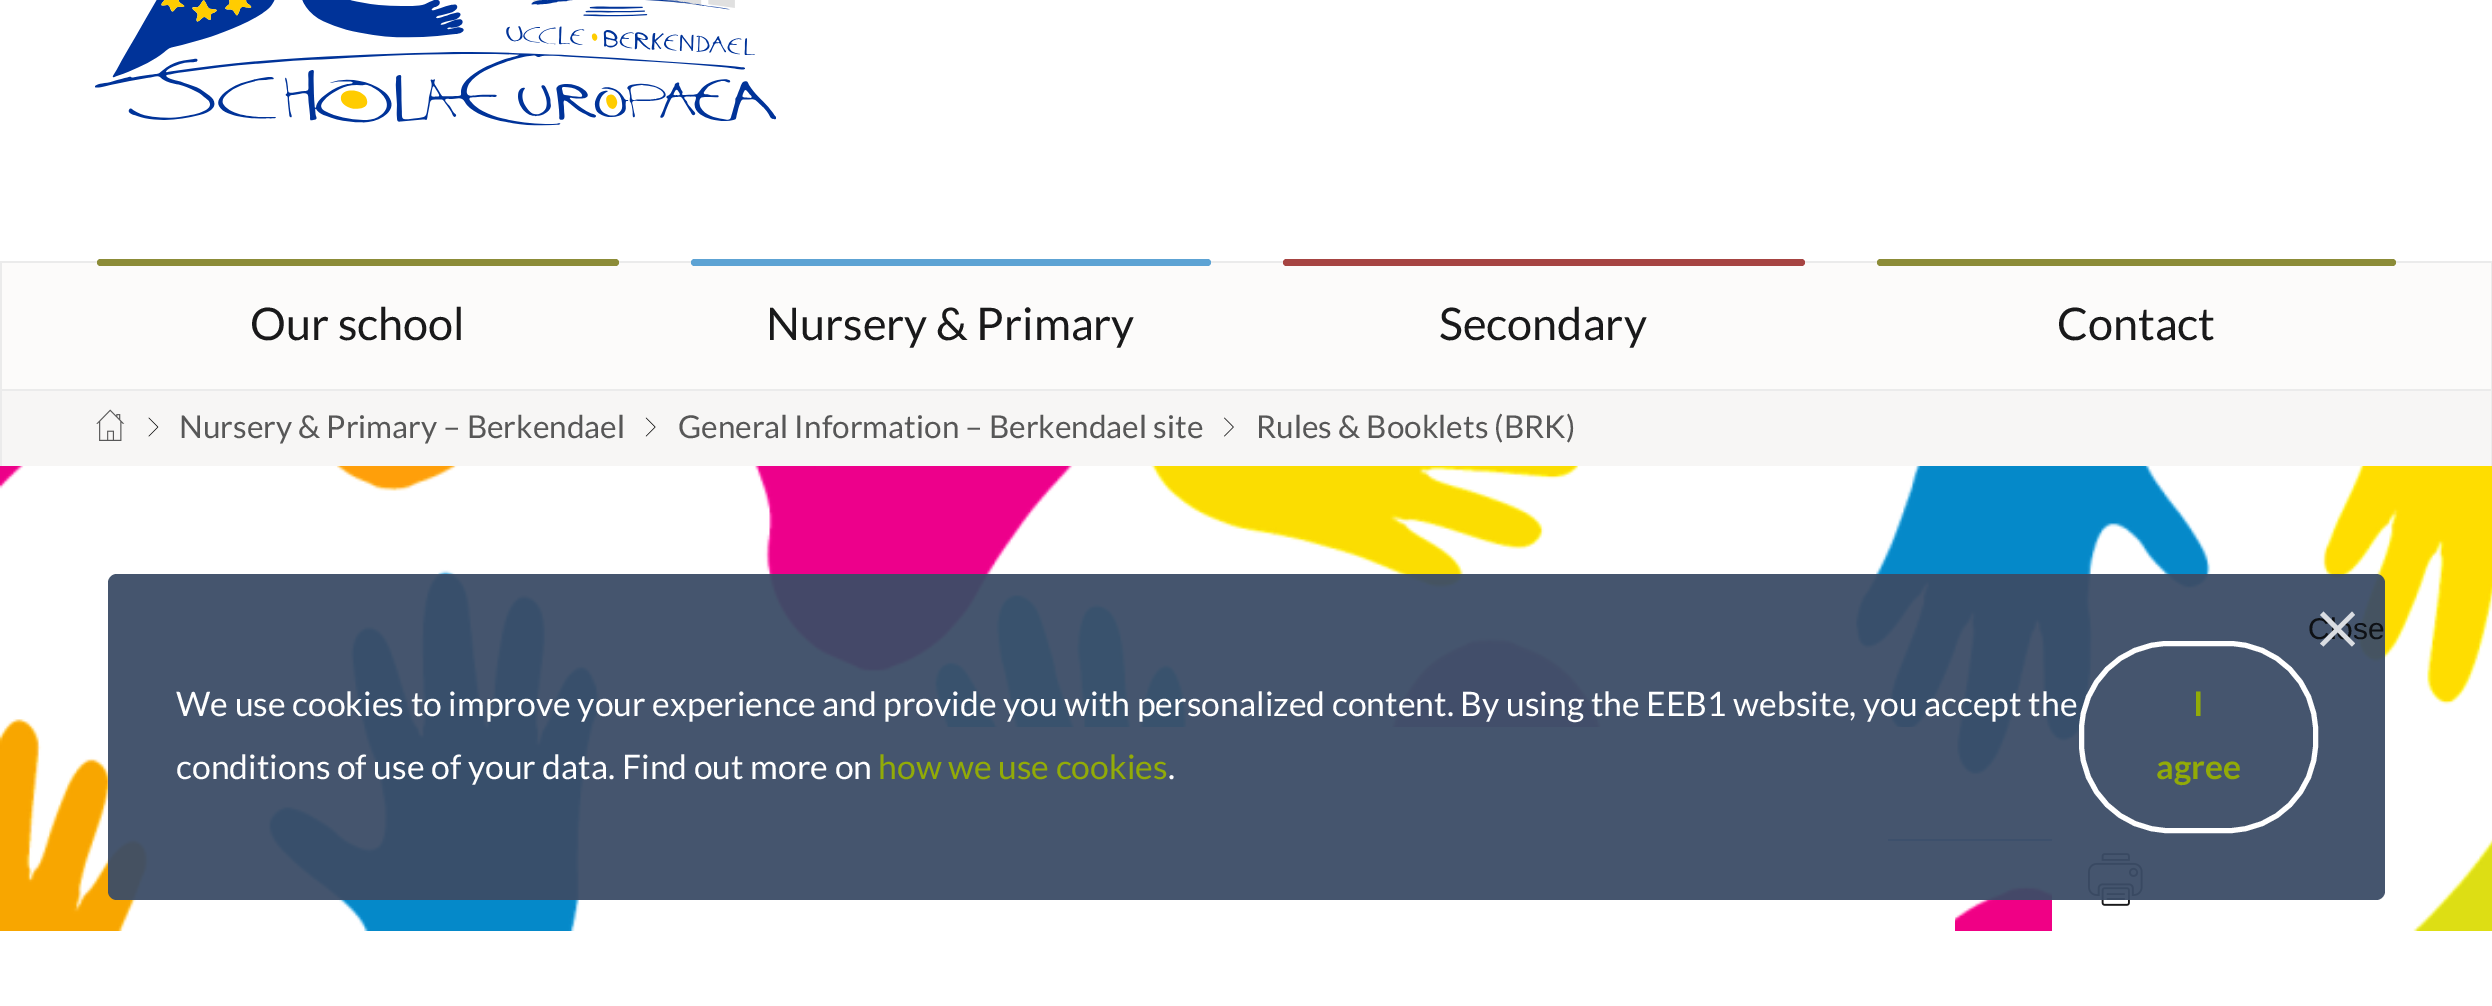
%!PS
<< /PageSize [2492 1006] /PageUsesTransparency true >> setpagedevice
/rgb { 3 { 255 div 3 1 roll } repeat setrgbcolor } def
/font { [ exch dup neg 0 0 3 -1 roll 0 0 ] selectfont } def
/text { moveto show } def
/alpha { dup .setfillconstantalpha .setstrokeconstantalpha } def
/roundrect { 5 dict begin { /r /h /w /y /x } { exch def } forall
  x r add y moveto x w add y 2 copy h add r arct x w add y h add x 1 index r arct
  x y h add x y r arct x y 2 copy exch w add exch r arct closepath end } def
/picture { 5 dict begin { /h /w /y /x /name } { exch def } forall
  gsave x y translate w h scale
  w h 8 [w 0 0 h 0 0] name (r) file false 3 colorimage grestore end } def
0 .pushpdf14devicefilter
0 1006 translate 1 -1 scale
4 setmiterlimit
255 255 255 rgb
0 0 2492 1006 rectfill
(img_01.rgb) 95 0 681 126 picture
252 251 250 rgb
2 263 2489 126 rectfill
235 235 235 rgb
0 261 2492 2 rectfill
2491 261 1 128 rectfill
0 261 2 128 rectfill
140 140 56 rgb
97 259 522 7 3.5 roundrect fill
93 163 212 rgb
691 259 520 7 3.5 roundrect fill
166 68 66 rgb
1283 259 522 7 3.5 roundrect fill
140 140 56 rgb
1877 259 519 7 3.5 roundrect fill
247 246 245 rgb
2 391 2489 75 rectfill
235 235 235 rgb
0 389 2492 2 rectfill
2491 389 1 77 rectfill
0 389 2 77 rectfill
(img_02.rgb) 96 409 29 32 picture
(img_03.rgb) 148 417 11 20 picture
(img_04.rgb) 645 417 11 20 picture
(img_05.rgb) 1224 417 10 20 picture
(img_06.rgb) 0 466 2492 465 picture
255 255 255 rgb
883 727 1072 204 rectfill
93 163 212 rgb
1888 839 165 2 rectfill
255 255 255 rgb
2066 828 moveto 319 0 rlineto 7.5 0 14 6.5 14 14 rcurveto 0 90 rlineto -347 0 rlineto 0 -90 rlineto 0 -7.5 6.5 -14 14 -14 rcurveto closepath fill
(img_07.rgb) 2088 853 55 53 picture
0.95 alpha
59 76 102 rgb
108 574 2277 326 9 roundrect fill
1 alpha
255 255 255 rgb
5 setlinewidth
2081.5 643.5 234 187 87.5 roundrect stroke
/Lato-Regular 45 font
25 25 26 rgb
(Our school) 250 340 text
(Nursery & Primary) 766 340 text
(Secondary) 1439 340 text
(Contact) 2057 340 text
/Lato-Regular 31.5 font
87 87 87 rgb
(Nursery & Primary – Berkendael) 179 438 text
(General Information – Berkendael site) 678 438 text
(Rules & Booklets \(BRK\)) 1256 438 text
/Lato-Regular 33.75 font
255 255 255 rgb
(We use cookies to improve your experience and provide you with personalized content. By using the EEB1 website, you accept the) 176 716 text
(conditions of use of your data. Find out more on) 176 779 text
146 171 7 rgb
(how we use cookies) 878 779 text
255 255 255 rgb
(.) 1168 779 text
/LiberationSans-Regular 30 font
14 17 21 rgb
(Close) 2308 639 text
218 221 226 rgb
2352 611.5 moveto 3 3.5 rlineto -31.5 31.5 rlineto -3.5 -3 rlineto closepath fill
2320 615 moveto 3.5 -3.5 rlineto 31.5 32 rlineto -3 3 rlineto closepath fill
/Lato-Bold 33.75 font
146 171 7 rgb
(I) 2193 716 text
(agree) 2156 779 text
.poppdf14devicefilter showpage
